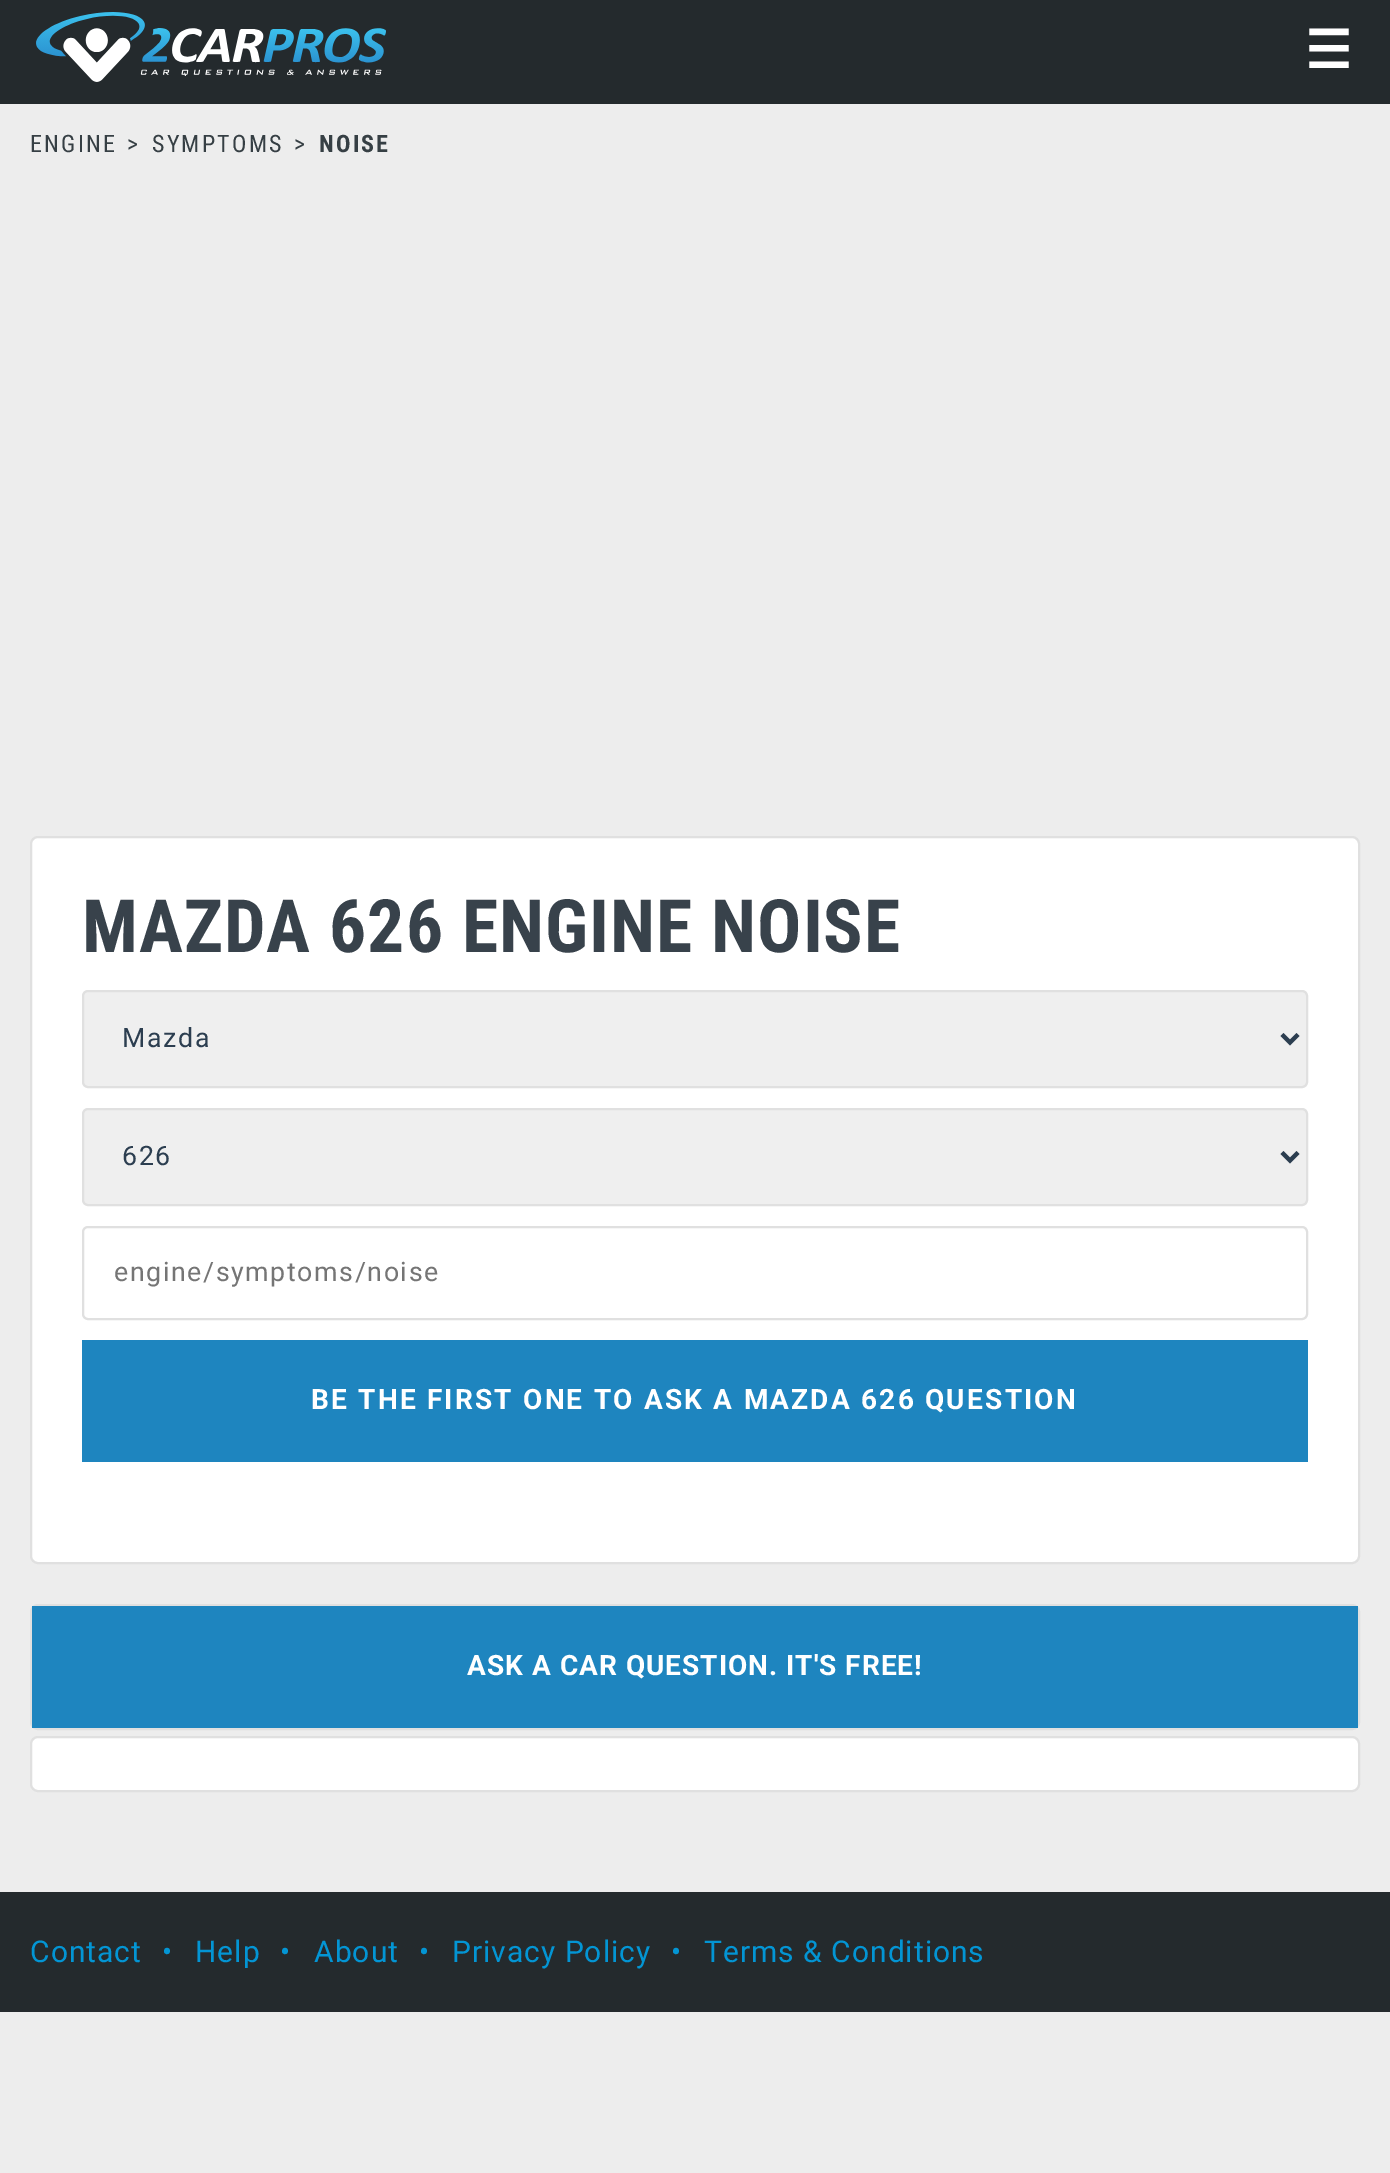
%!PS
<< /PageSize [1390 2173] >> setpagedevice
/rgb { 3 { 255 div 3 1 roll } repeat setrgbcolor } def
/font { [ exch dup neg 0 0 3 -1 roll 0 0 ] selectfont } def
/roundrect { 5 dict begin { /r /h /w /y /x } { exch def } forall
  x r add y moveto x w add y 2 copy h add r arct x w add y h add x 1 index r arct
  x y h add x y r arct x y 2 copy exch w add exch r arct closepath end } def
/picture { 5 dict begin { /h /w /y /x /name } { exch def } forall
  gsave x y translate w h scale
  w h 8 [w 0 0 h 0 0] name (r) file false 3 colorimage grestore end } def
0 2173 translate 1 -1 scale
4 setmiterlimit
237 237 237 rgb
0 0 1390 2173 rectfill
36 42 45 rgb
0 0 1390 104 rectfill
(img_01.rgb) 36 12 350 70 picture
255 255 255 rgb
31 837 1328 726 7 roundrect gsave fill grestore
224 224 224 rgb
2 setlinewidth
stroke
239 239 239 rgb
83 991 1224 96 5 roundrect gsave fill grestore
224 224 224 rgb
stroke
44 62 80 rgb
4 setlinewidth
1282 1034.5 moveto 8 8 rlineto 8 -8 rlineto stroke
239 239 239 rgb
83 1109 1224 96 5 roundrect gsave fill grestore
224 224 224 rgb
2 setlinewidth
stroke
44 62 80 rgb
4 setlinewidth
1282 1152.5 moveto 8 8 rlineto 8 -8 rlineto stroke
224 224 224 rgb
2 setlinewidth
83 1227 1224 92 5 roundrect stroke
30 133 191 rgb
82 1340 1226 122 rectfill
224 224 224 rgb
31 1605 1328 124 7 roundrect stroke
30 133 191 rgb
32 1606 1326 122 rectfill
255 255 255 rgb
31 1737 1328 54 7 roundrect gsave fill grestore
224 224 224 rgb
stroke
36 42 45 rgb
0 1892 1390 120 rectfill
/DejaVuSans-Bold 52 font
255 255 255 rgb
1305 68 moveto 2 0 (☰) ashow
/RobotoCondensed-Regular 24 font
54 63 68 rgb
30 152 moveto 2.2 0 (ENGINE) ashow
127 152 moveto 2.2 0 (>) ashow
152 152 moveto 2.2 0 (SYMPTOMS) ashow
294 152 moveto 2.2 0 (>) ashow
/RobotoCondensed-Bold 24 font
319 152 moveto 2.2 0 (NOISE) ashow
/RobotoCondensed-Bold 73.6 font
56 66 75 rgb
82 952 moveto 1 0 (MAZDA 626 ENGINE NOISE) ashow
/Roboto-Regular 26.75 font
44 62 80 rgb
122 1047 moveto 1.6 0 (Mazda) ashow
122 1165 moveto 1.6 0 (626) ashow
117 117 117 rgb
114 1281 moveto 1.6 0 (engine/symptoms/noise) ashow
/Roboto-Bold 28 font
255 255 255 rgb
311 1409 moveto 2.2 0 (BE THE FIRST ONE TO ASK A MAZDA 626 QUESTION) ashow
467 1675 moveto 1 0 (ASK A CAR QUESTION. IT'S FREE!) ashow
/Roboto-Regular 30 font
3 149 212 rgb
30 1962 moveto 1 0 (Contact) ashow
162 1962 moveto 1 0 (•) ashow
195 1962 moveto 1 0 (Help) ashow
280 1962 moveto 1 0 (•) ashow
314 1962 moveto 1 0 (About) ashow
419 1962 moveto 1 0 (•) ashow
452 1962 moveto 1 0 (Privacy Policy) ashow
671 1962 moveto 1 0 (•) ashow
704 1962 moveto 1 0 (Terms & Conditions) ashow
showpage
